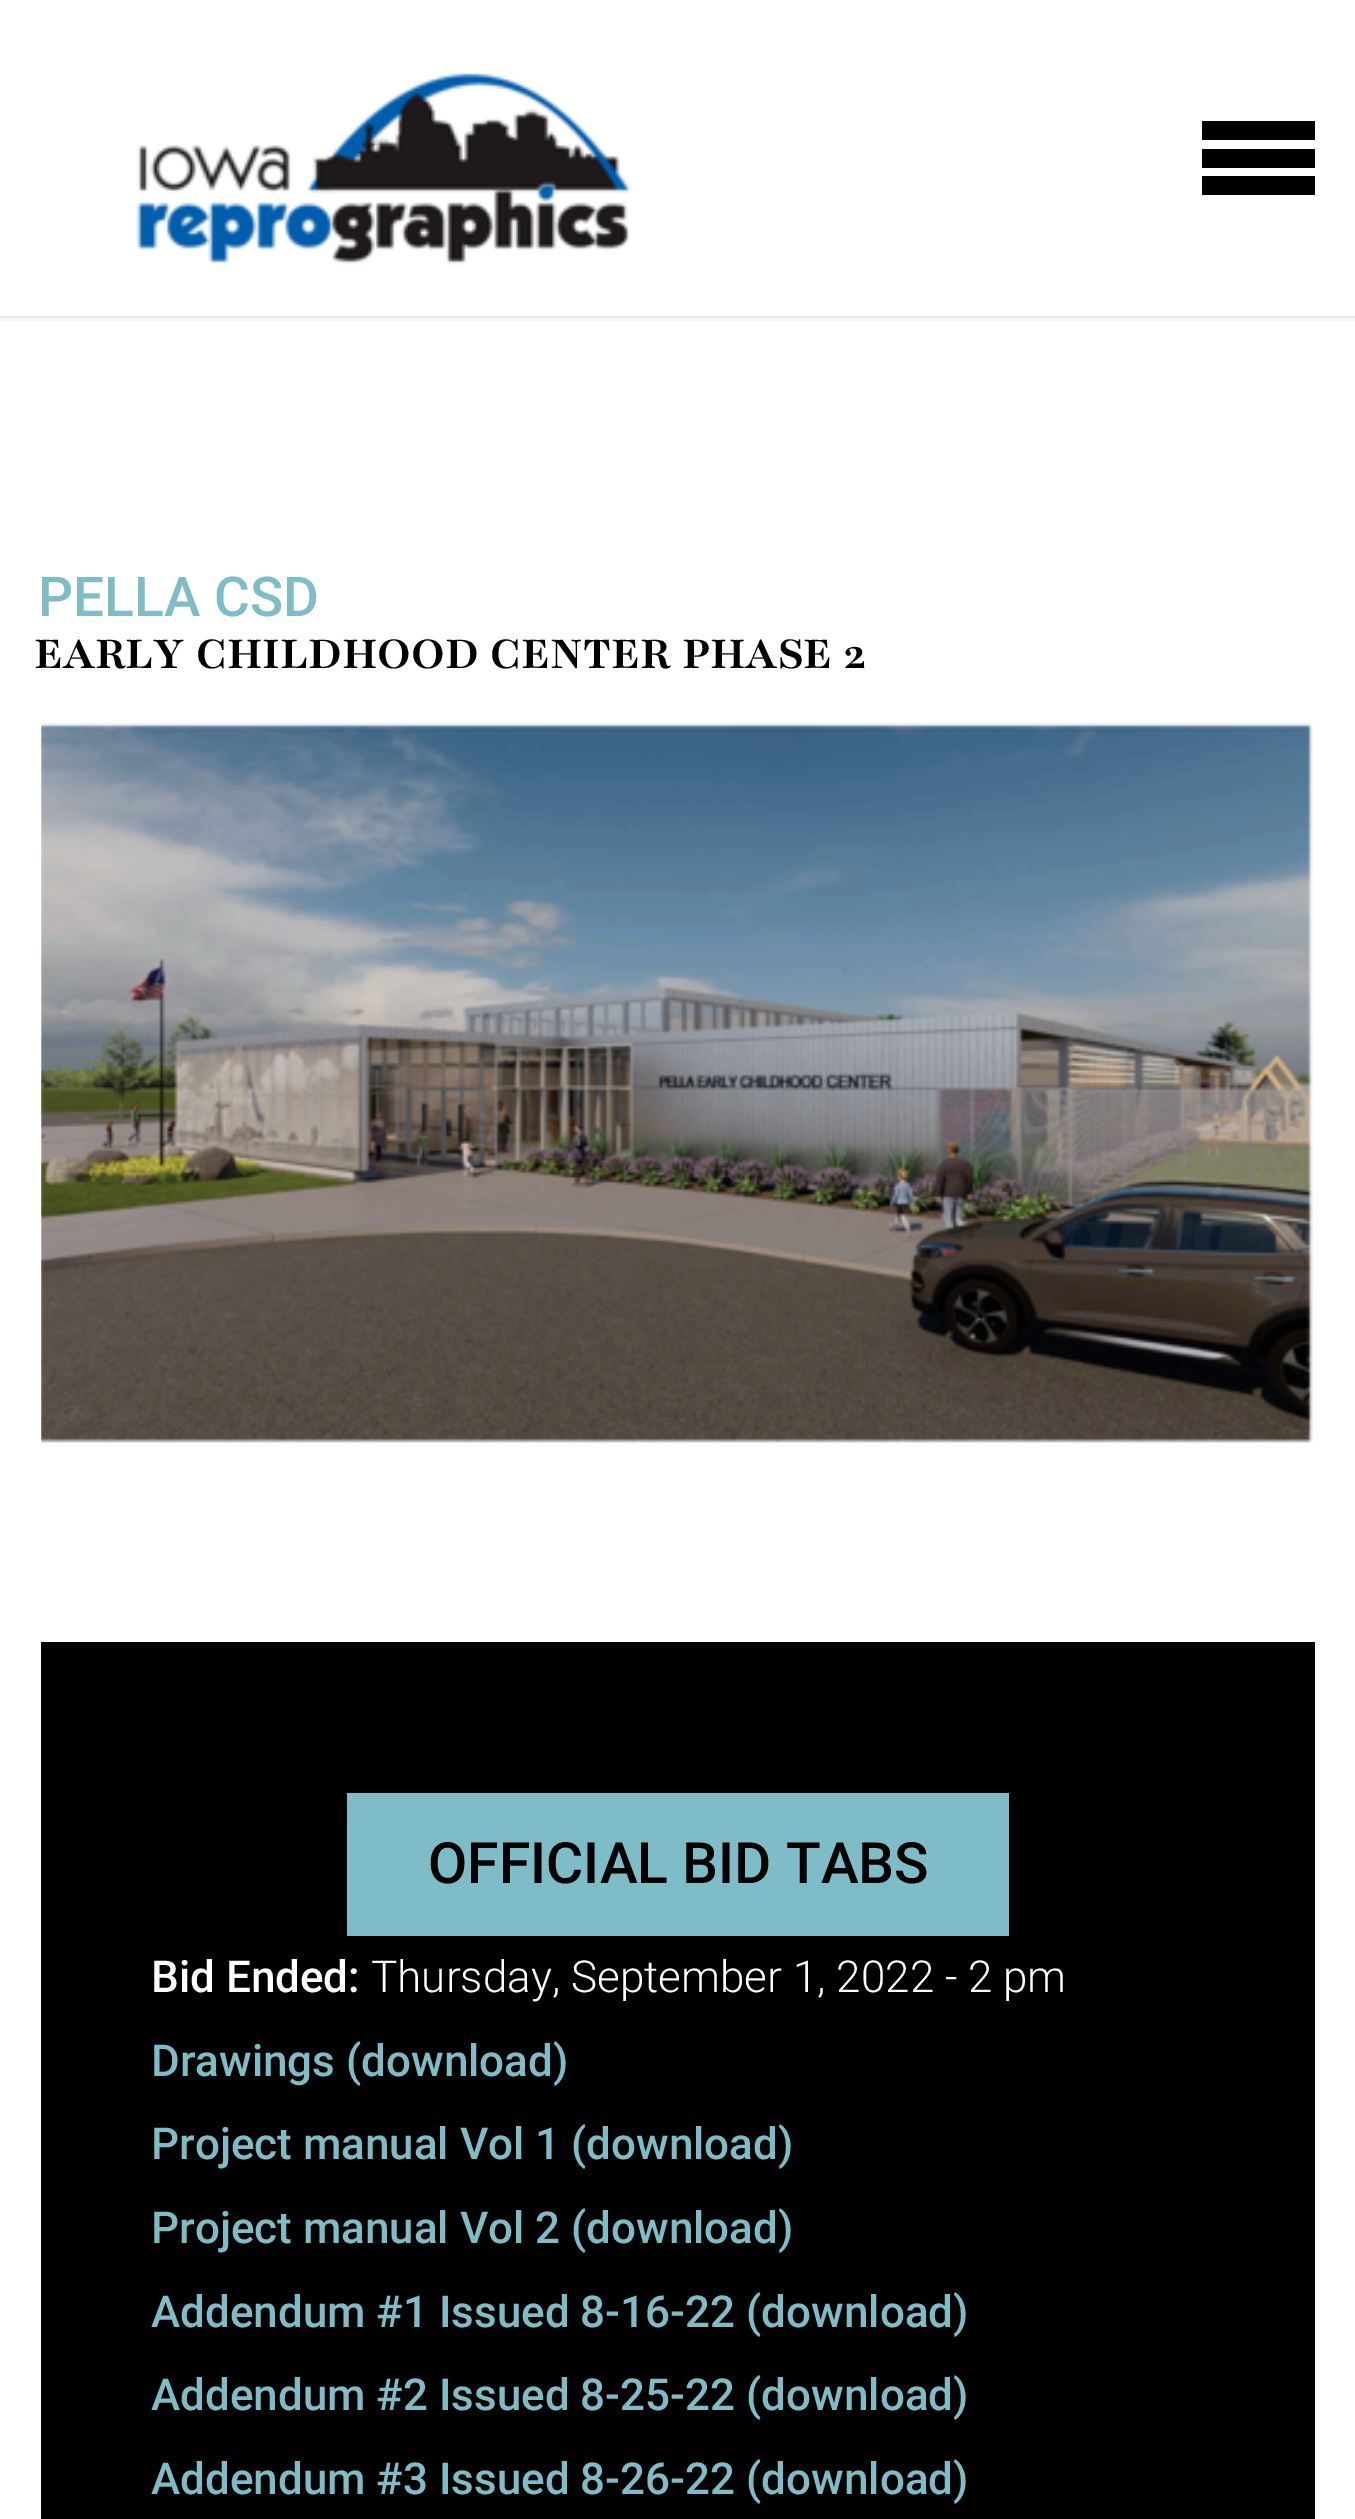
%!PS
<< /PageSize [1355 2519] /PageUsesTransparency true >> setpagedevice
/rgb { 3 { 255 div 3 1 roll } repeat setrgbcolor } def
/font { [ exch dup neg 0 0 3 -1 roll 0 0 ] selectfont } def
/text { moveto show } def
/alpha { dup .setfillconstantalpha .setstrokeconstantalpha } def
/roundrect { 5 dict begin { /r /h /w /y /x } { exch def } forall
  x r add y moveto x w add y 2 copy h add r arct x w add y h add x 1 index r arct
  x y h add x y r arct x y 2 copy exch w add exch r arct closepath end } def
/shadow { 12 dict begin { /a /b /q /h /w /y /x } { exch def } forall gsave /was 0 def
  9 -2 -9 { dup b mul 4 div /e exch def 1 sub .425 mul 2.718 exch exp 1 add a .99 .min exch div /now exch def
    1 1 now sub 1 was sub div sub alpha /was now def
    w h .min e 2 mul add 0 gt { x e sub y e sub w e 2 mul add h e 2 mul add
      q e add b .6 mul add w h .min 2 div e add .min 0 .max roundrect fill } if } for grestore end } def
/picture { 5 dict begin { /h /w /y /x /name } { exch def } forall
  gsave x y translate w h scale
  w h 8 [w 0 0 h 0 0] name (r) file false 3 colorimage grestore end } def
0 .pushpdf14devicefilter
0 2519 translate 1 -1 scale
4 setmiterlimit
255 255 255 rgb
0 0 1355 2519 rectfill
gsave
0 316 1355 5 rectclip
0 0 0 rgb
0 0 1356 316 0 4 0.2 shadow
grestore
(img_01.rgb) 136 71 495 194 picture
0 0 0 rgb
1202 121 113 19 rectfill
1202 149 113 19 rectfill
1202 176 113 19 rectfill
(img_02.rgb) 41 723 1272 720 picture
41 1642 1274 877 rectfill
126 188 199 rgb
347 1793 662 143 rectfill
/Roboto-Medium 55 font
(PELLA CSD) 38 616 text
/Playfair-Bold 49.5 font
0 0 0 rgb
34 668 moveto 2 0 32 (EARLY CHILDHOOD CENTER PHASE 2) widthshow
/Roboto-Medium 57 font
(OFFICIAL BID TABS) 428 1883 text
/Roboto-Medium 44 font
255 255 255 rgb
(Bid Ended:) 151 1992 text
/Roboto-Light 44 font
(Thursday, September 1, 2022 - 2 pm) 371 1992 text
/Roboto-Medium 44 font
126 188 199 rgb
(Drawings \(download\)) 151 2076 text
(Project manual Vol 1 \(download\)) 151 2159 text
(Project manual Vol 2 \(download\)) 151 2243 text
(Addendum #1 Issued 8-16-22 \(download\)) 151 2327 text
(Addendum #2 Issued 8-25-22 \(download\)) 151 2410 text
(Addendum #3 Issued 8-26-22 \(download\)) 151 2494 text
.poppdf14devicefilter showpage
